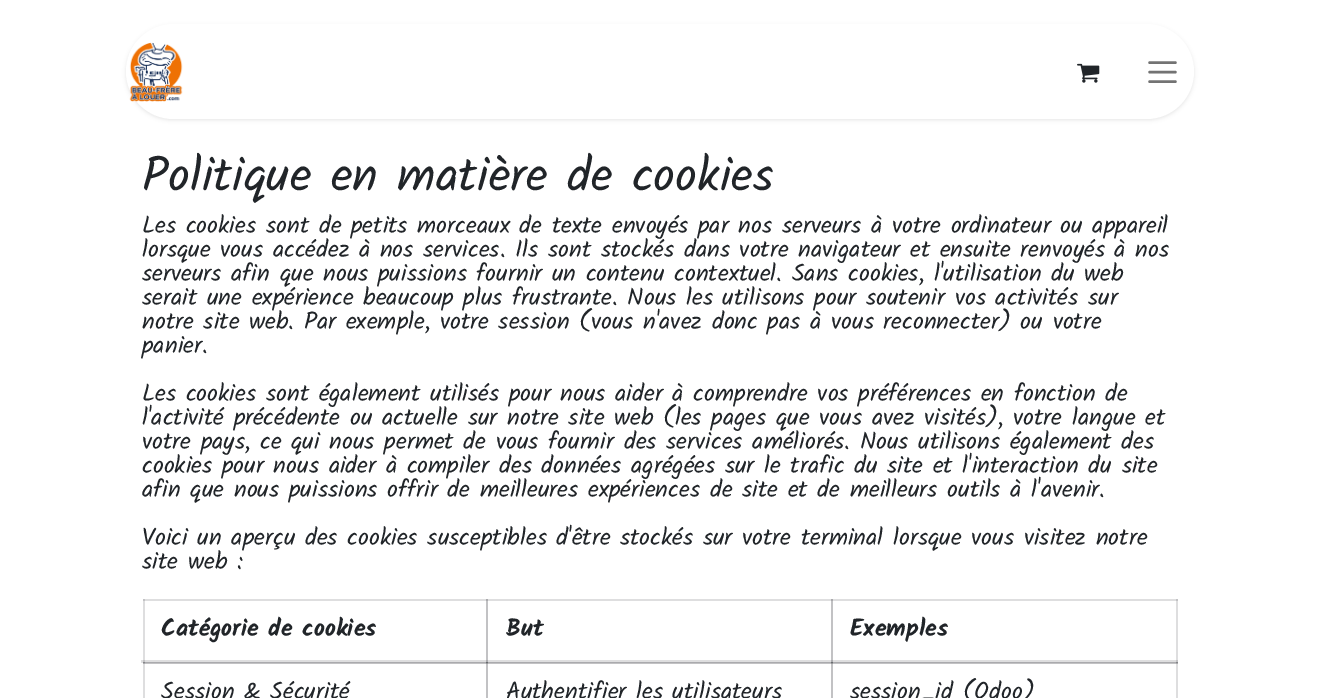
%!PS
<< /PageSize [1318 698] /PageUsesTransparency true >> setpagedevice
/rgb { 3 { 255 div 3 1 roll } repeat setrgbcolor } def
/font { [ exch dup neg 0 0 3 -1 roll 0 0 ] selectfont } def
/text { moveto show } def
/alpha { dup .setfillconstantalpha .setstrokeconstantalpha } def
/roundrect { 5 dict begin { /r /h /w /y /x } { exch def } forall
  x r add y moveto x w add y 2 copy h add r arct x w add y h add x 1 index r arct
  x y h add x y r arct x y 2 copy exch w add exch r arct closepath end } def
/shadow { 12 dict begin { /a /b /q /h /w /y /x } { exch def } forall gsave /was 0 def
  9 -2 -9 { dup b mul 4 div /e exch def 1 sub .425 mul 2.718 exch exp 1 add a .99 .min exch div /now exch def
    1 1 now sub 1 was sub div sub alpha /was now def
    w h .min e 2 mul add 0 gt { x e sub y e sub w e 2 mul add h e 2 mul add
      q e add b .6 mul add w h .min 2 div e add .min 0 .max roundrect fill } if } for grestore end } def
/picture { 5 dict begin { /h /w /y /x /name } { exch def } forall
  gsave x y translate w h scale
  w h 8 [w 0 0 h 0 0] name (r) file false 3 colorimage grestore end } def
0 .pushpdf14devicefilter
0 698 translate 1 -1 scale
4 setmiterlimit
255 255 255 rgb
0 0 1318 698 rectfill
222 222 223 rgb
141 660 1037 3 rectfill
143 599 2 64 rectfill
194 194 196 rgb
143 660 2 3 rectfill
486 599 2 64 rectfill
170 170 173 rgb
486 660 2 3 rectfill
194 194 196 rgb
831 599 2 64 rectfill
170 170 173 rgb
831 660 2 3 rectfill
222 222 223 rgb
1176 599 2 64 rectfill
194 194 196 rgb
1176 660 2 3 rectfill
222 222 223 rgb
143 662 2 36 rectfill
194 194 196 rgb
486 662 2 36 rectfill
831 662 2 36 rectfill
222 222 223 rgb
1176 662 2 36 rectfill
0 0 0 rgb
126 26 1068 94 47 2 0.1 shadow
255 255 255 rgb
126 24 1068 95 47.5 roundrect fill
(img_01.rgb) 129 42 54 60 picture
(img_02.rgb) 1077 63 23 20 picture
115 115 115 rgb
2.4 setlinewidth
1 setlinecap
1149.5 62.5 moveto 26 0 rlineto 1149.5 72 moveto 26 0 rlineto 1149.5 81.5 moveto 26 0 rlineto stroke
222 222 223 rgb
143 599 1035 2 rectfill
194 194 196 rgb
143 599 2 2 rectfill
170 170 173 rgb
486 599 2 2 rectfill
831 599 2 2 rectfill
194 194 196 rgb
1176 599 2 2 rectfill
143 663 1035 1 rectfill
170 170 173 rgb
143 662 1035 1 rectfill
143 663 2 1 rectfill
132 133 136 rgb
143 662 2 1 rectfill
149 150 153 rgb
486 663 2 1 rectfill
104 107 110 rgb
486 662 2 1 rectfill
149 150 153 rgb
831 663 2 1 rectfill
104 107 110 rgb
831 662 2 1 rectfill
170 170 173 rgb
1176 663 2 1 rectfill
132 133 136 rgb
1176 662 2 1 rectfill
/Kalam-Regular 48.25 font
33 37 41 rgb
(Politique en matière de cookies) 142 191 text
/Kalam-Regular 24 font
(Les cookies sont de petits morceaux de texte envoyés par nos serveurs à votre ordinateur ou appareil) 142 233 text
(lorsque vous accédez à nos services. Ils sont stockés dans votre navigateur et ensuite renvoyés à nos) 142 257 text
(serveurs afin que nous puissions fournir un contenu contextuel. Sans cookies, l'utilisation du web) 142 281 text
(serait une expérience beaucoup plus frustrante. Nous les utilisons pour soutenir vos activités sur) 142 305 text
(notre site web. Par exemple, votre session \(vous n'avez donc pas à vous reconnecter\) ou votre) 142 329 text
(panier.) 142 353 text
(Les cookies sont également utilisés pour nous aider à comprendre vos préférences en fonction de) 142 401 text
(l'activité précédente ou actuelle sur notre site web \(les pages que vous avez visités\), votre langue et) 142 425 text
(votre pays, ce qui nous permet de vous fournir des services améliorés. Nous utilisons également des) 142 449 text
(cookies pour nous aider à compiler des données agrégées sur le trafic du site et l'interaction du site) 142 473 text
(afin que nous puissions offrir de meilleures expériences de site et de meilleurs outils à l'avenir.) 142 497 text
(Voici un aperçu des cookies susceptibles d'être stockés sur votre terminal lorsque vous visitez notre) 142 545 text
(site web :) 142 569 text
/Kalam-Bold 24 font
(Catégorie de cookies) 161 636 text
(But) 506 636 text
(Exemples) 850 636 text
/Kalam-Regular 24 font
(Session & Sécurité) 161 699 text
(Authentifier les utilisateurs) 506 699 text
(session_id \(Odoo\)) 850 699 text
.poppdf14devicefilter showpage
